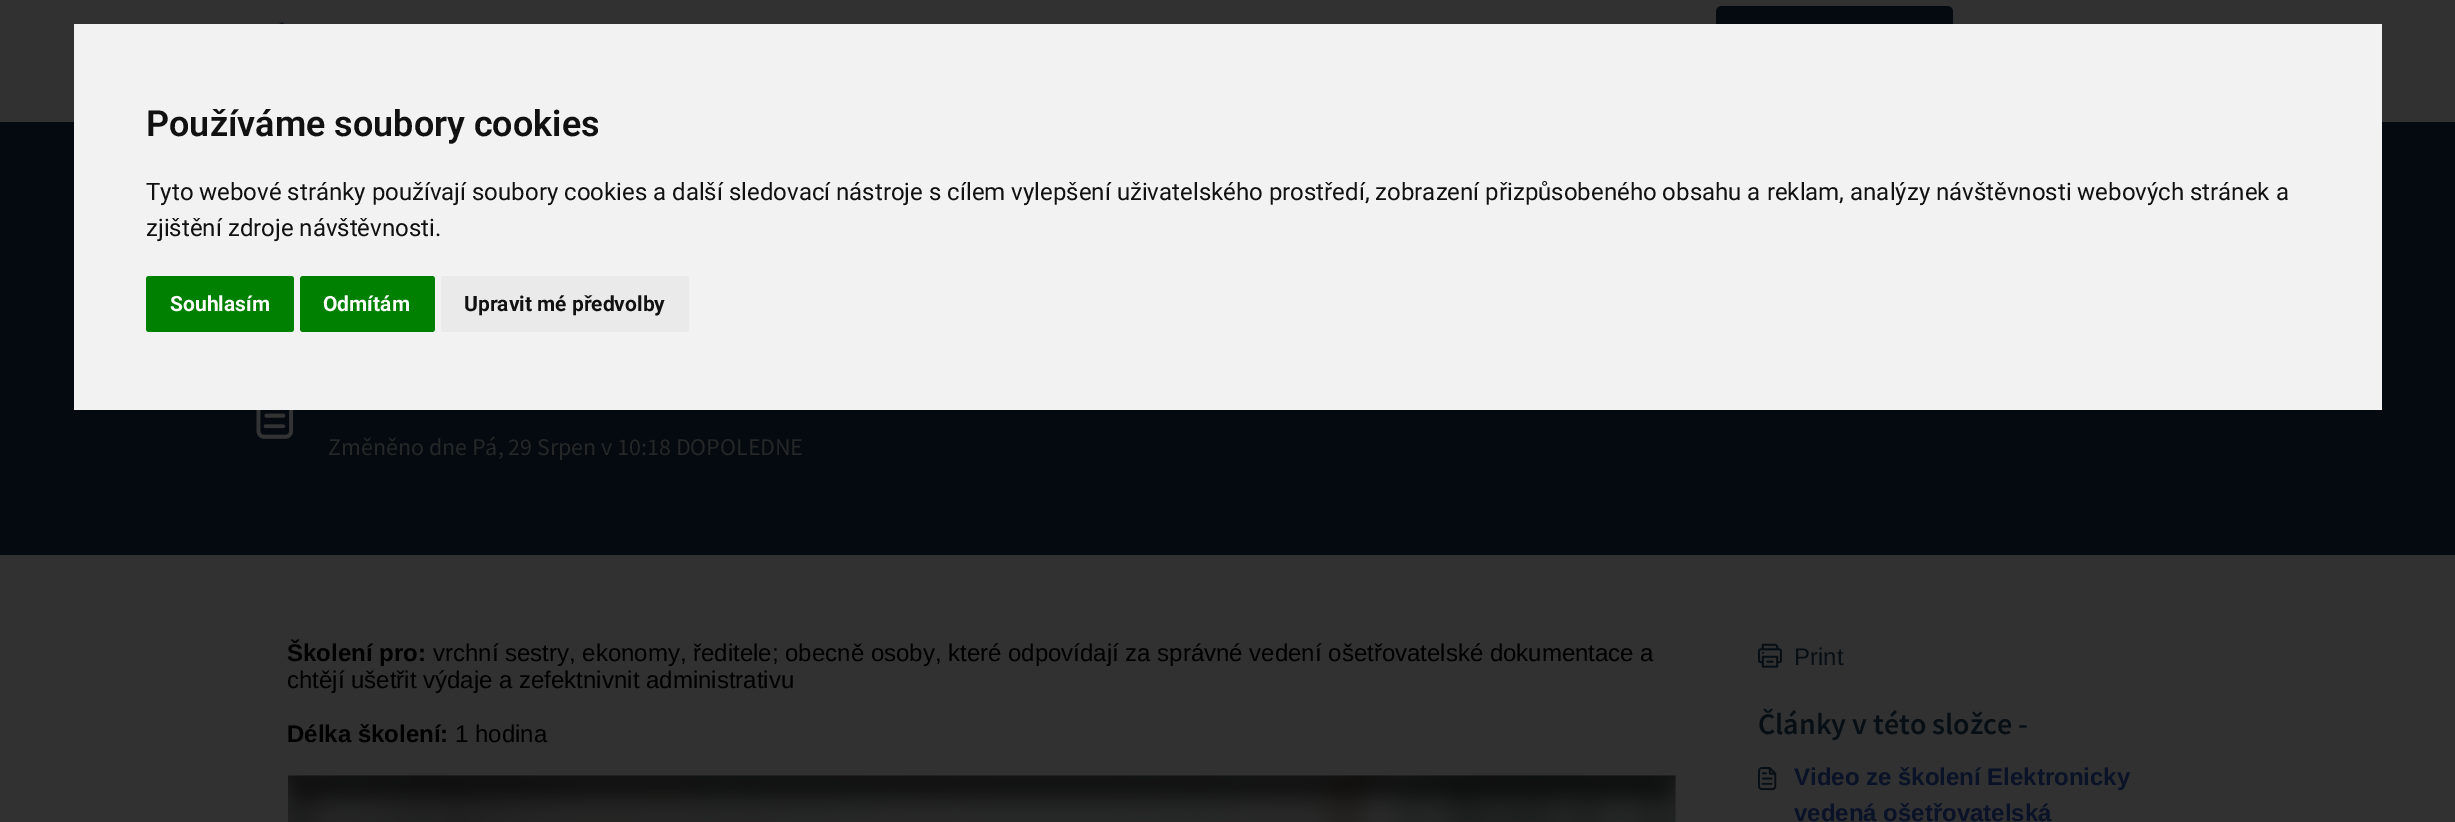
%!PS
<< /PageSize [2455 822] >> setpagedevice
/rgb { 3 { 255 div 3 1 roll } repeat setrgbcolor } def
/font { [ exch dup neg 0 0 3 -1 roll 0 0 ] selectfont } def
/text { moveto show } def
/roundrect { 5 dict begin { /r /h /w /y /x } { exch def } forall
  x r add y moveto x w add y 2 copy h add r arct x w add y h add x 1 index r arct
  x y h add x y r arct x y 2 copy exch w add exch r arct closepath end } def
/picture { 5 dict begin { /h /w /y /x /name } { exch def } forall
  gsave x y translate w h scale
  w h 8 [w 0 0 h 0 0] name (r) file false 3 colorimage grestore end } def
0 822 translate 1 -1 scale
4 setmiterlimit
49 49 50 rgb
0 0 2455 822 rectfill
(img_01.rgb) 278 22 8 2 picture
4 10 15 rgb
1722 6 moveto 225 0 rlineto 3.5 0 6 2.5 6 6 rcurveto 0 96 rlineto -237 0 rlineto 0 -96 rlineto 0 -3.5 2.5 -6 6 -6 rcurveto closepath fill
0 122 2455 433 rectfill
242 242 242 rgb
74 24 2308 386 rectfill
0 128 0 rgb
146 276 148 56 3 roundrect fill
300 276 135 56 3 roundrect fill
234 234 234 rgb
441 276 248 56 3 roundrect fill
(img_02.rgb) 256 410 38 29 picture
(img_03.rgb) 288 775 1388 47 picture
(img_04.rgb) 1758 643 24 25 picture
(img_05.rgb) 1758 767 19 24 picture
/Roboto-SemiBold 36 font
17 17 17 rgb
(Používáme soubory cookies) 146 136 text
/Roboto-Regular 24 font
(Tyto webové stránky používají soubory cookies a další sledovací nástroje s cílem vylepšení uživatelského prostředí, zobrazení přizpůsobeného obsahu a reklam, analýzy návštěvnosti webových stránek a) 146 200 text
(zjištění zdroje návštěvnosti.) 146 236 text
/Roboto-Bold 21 font
255 255 255 rgb
(Souhlasím) 170 311 text
(Odmítám) 323 311 text
17 17 17 rgb
(Upravit mé předvolby) 464 311 text
/SourceSansPro-Regular 24 font
37 39 40 rgb
(Změněno dne Pá, 29 Srpen v 10:18 DOPOLEDNE) 328 455 text
/LiberationSans-Bold 24 font
0 0 0 rgb
(Školení pro:) 287 661 text
/LiberationSans-Regular 24 font
(vrchní sestry, ekonomy, ředitele; obecně osoby, které odpovídají za správné vedení ošetřovatelské dokumentace a) 433 661 text
(chtějí ušetřit výdaje a zefektnivnit administrativu) 287 688 text
/LiberationSans-Bold 24 font
(Délka školení:) 287 742 text
/LiberationSans-Regular 24 font
(1 hodina) 455 742 text
8 15 20 rgb
(Print) 1794 665 text
/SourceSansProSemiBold-SemiBold 30 font
(Články v této složce -) 1758 734 text
/LiberationSans-Bold 24 font
9 18 39 rgb
(Video ze školení Elektronicky) 1794 785 text
(vedená ošetřovatelská) 1794 821 text
showpage
